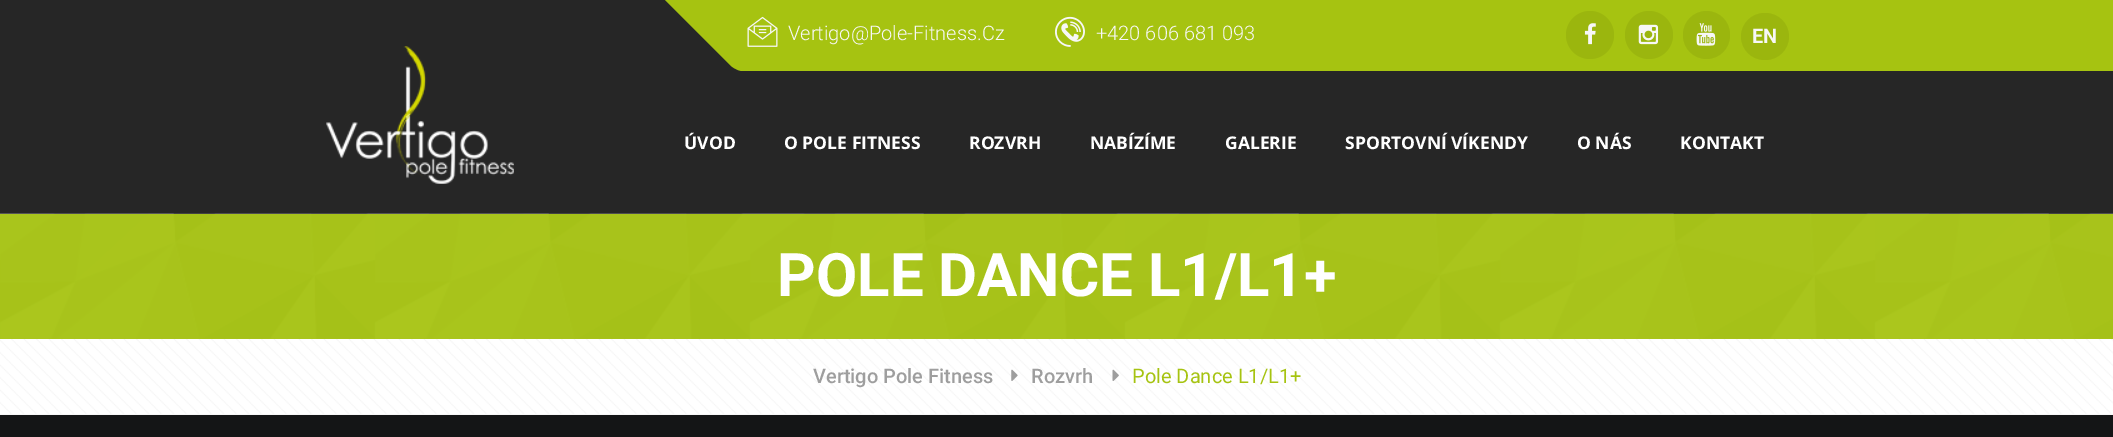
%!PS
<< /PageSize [2113 437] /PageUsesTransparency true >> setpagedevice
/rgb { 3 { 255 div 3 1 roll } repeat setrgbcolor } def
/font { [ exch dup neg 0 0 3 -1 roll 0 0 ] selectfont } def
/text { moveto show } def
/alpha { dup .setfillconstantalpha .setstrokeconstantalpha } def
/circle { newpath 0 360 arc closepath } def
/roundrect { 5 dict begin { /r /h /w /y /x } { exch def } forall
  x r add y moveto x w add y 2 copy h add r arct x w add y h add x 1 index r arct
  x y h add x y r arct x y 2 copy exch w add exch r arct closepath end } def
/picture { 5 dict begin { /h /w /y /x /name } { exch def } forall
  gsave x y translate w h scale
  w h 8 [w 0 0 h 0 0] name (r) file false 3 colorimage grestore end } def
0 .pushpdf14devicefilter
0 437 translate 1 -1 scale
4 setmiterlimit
255 255 255 rgb
0 0 2113 437 rectfill
0.85 alpha
0 0 0 rgb
0 0 2113 214 rectfill
1 alpha
166 195 17 rgb
665 0 moveto 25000 0 rlineto 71 71 rlineto -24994 0 rlineto -3 0 -9 -3 -12 -6 rcurveto closepath fill
(img_01.rgb) 747 16 31 31 picture
(img_02.rgb) 1055 16 30 31 picture
155 182 14 rgb
1590 35 24 circle fill
(img_03.rgb) 1584 23 12 22 picture
1649 35 24 circle fill
(img_04.rgb) 1638 24 21 21 picture
1683 11 47 48 23.5 roundrect fill
(img_05.rgb) 1696 23 20 23 picture
1741 13 48 47 23.5 roundrect fill
(img_06.rgb) 326 46 188 138 picture
(img_07.rgb) 0 213 2113 126 picture
0.95 alpha
166 195 17 rgb
0 214 2113 125 rectfill
1 alpha
(img_08.rgb) 0 339 2113 75 picture
247 247 247 rgb
0 414 2113 1 rectfill
(img_09.rgb) 1011 369 7 12 picture
(img_10.rgb) 1112 369 7 12 picture
20 21 22 rgb
0 415 2113 22 rectfill
/Roboto-Light 20 font
247 247 247 rgb
(Vertigo@Pole-Fitness.Cz) 788 40 text
(+420 606 681 093) 1096 40 text
/Roboto-Bold 20 font
(EN) 1752 43 text
/OpenSans-Bold 17.5 font
255 255 255 rgb
(ÚVOD) 684 149 text
(O POLE FITNESS) 784 149 text
(ROZVRH) 969 149 text
(NABÍZÍME) 1090 149 text
(GALERIE) 1225 149 text
(SPORTOVNÍ VÍKENDY) 1345 149 text
(O NÁS) 1577 149 text
(KONTAKT) 1680 149 text
/Roboto-Bold 60 font
(POLE DANCE L1/L1+) 777 296 text
/Roboto-Medium 20 font
158 158 158 rgb
(Vertigo Pole Fitness) 813 383 text
(Rozvrh) 1031 383 text
/Roboto-Regular 20 font
166 195 17 rgb
(Pole Dance L1/L1+) 1132 383 text
.poppdf14devicefilter showpage
